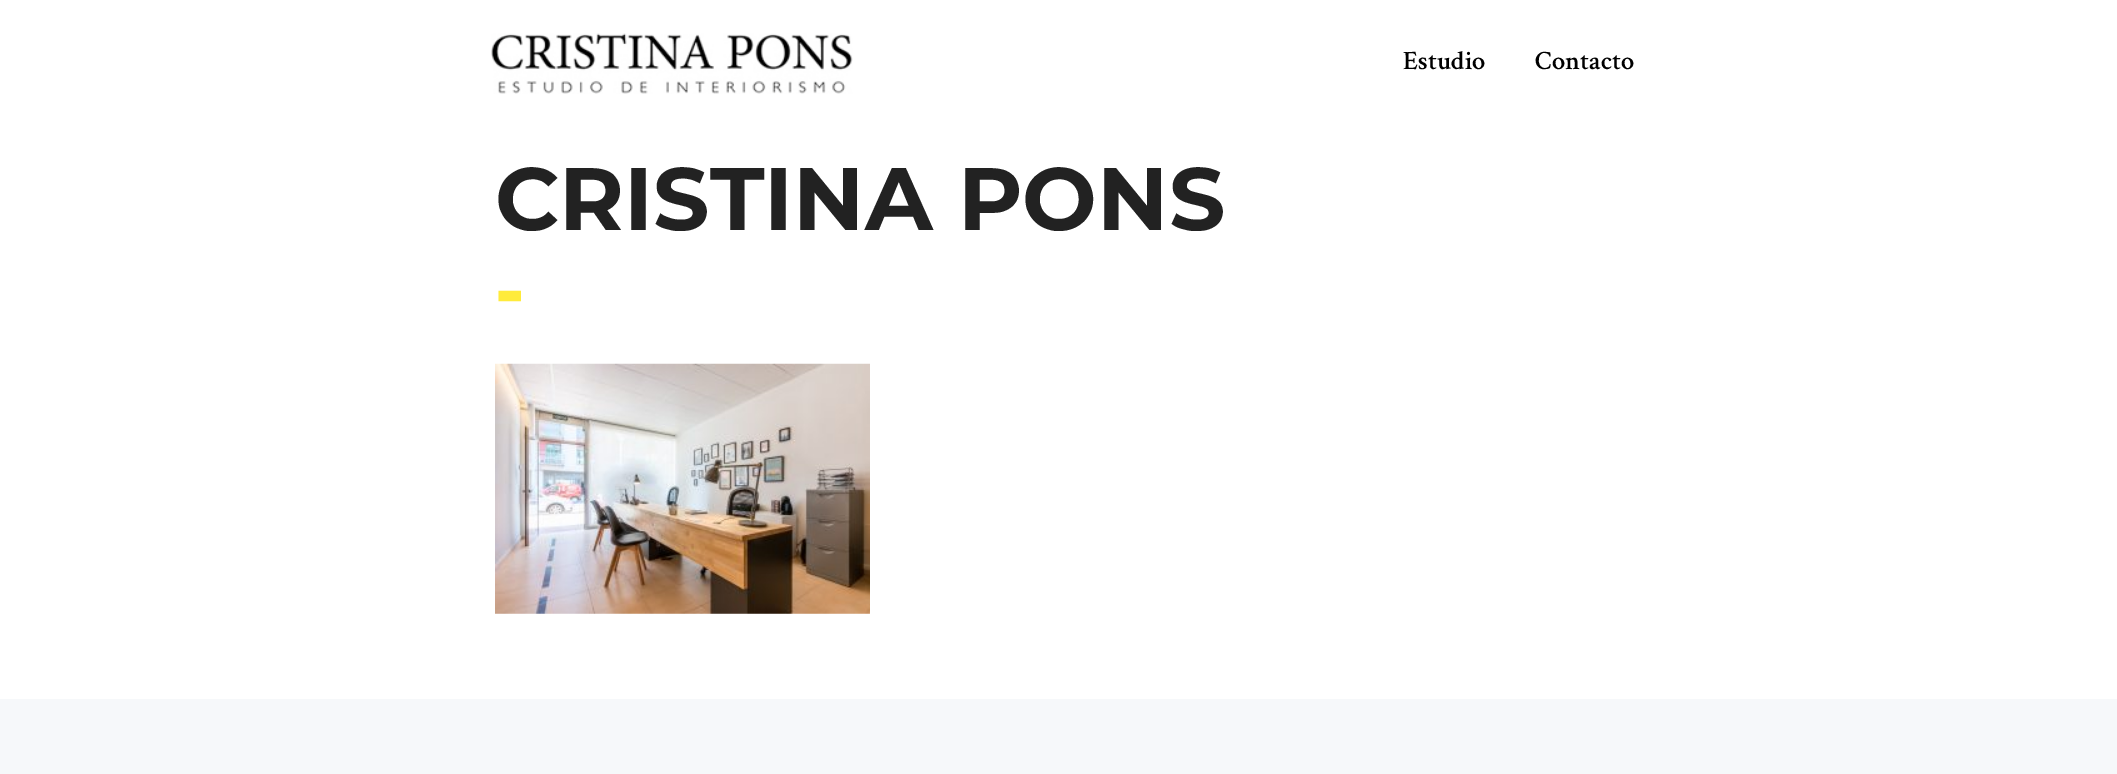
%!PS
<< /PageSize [2117 774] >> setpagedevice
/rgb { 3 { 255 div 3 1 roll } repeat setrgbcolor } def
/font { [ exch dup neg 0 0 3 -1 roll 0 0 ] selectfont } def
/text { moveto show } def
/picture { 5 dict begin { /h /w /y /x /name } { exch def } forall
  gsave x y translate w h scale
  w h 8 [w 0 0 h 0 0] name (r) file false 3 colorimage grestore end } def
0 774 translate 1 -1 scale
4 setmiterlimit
255 255 255 rgb
0 0 2117 774 rectfill
(img_01.rgb) 491 33 362 61 picture
(img_02.rgb) 495 363 375 251 picture
246 248 250 rgb
0 699 2117 75 rectfill
/CrimsonText-SemiBold 26.5 font
0 0 0 rgb
(Estudio) 1403 69 text
(Contacto) 1535 69 text
/Montserrat-Bold 88.5 font
34 34 34 rgb
(CRISTINA PONS) 495 230 text
/LiberationSans-Bold 88.5 font
255 235 59 rgb
(-) 495 319 text
showpage
